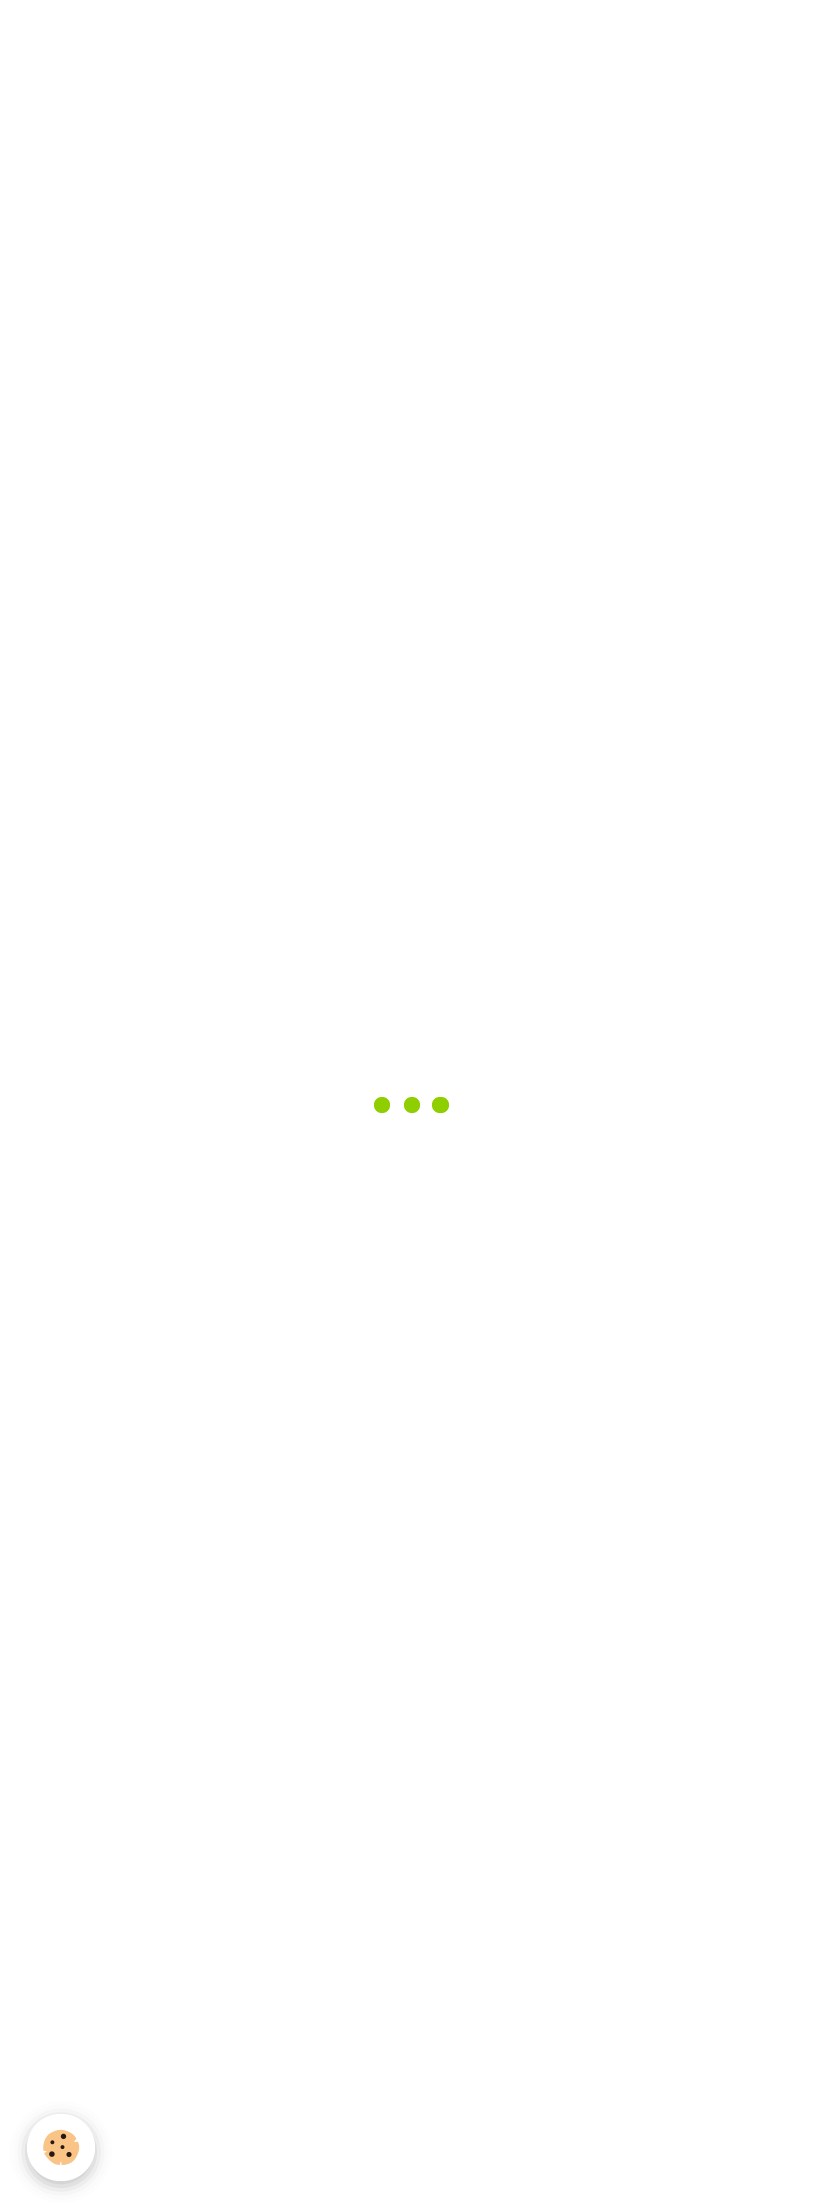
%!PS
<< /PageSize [825 2208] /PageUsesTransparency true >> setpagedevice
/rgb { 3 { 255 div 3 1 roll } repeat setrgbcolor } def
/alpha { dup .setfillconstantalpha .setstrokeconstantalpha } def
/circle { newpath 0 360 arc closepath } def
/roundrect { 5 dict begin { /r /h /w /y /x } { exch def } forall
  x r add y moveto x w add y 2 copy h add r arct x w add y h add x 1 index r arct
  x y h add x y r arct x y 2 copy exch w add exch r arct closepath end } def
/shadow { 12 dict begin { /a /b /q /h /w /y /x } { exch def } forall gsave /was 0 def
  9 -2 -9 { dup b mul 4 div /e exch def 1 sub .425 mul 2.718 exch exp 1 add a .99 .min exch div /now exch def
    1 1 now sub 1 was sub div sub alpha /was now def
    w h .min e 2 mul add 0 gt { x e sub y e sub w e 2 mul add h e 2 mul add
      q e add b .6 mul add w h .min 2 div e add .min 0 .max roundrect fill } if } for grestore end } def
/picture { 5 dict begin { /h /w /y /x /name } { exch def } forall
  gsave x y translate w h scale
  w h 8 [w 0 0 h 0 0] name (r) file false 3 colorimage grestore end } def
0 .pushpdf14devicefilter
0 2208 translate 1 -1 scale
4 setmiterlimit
255 255 255 rgb
0 0 825 2208 rectfill
143 206 0 rgb
382 1105 8 circle fill
412 1105 8 circle fill
432 1097 17 16 8 roundrect fill
0 0 0 rgb
27 2118 68 68 34 7.5 0.24 shadow
255 255 255 rgb
27 2114 68 67 33.5 roundrect fill
(img_01.rgb) 43 2129 37 36 picture
.poppdf14devicefilter showpage
